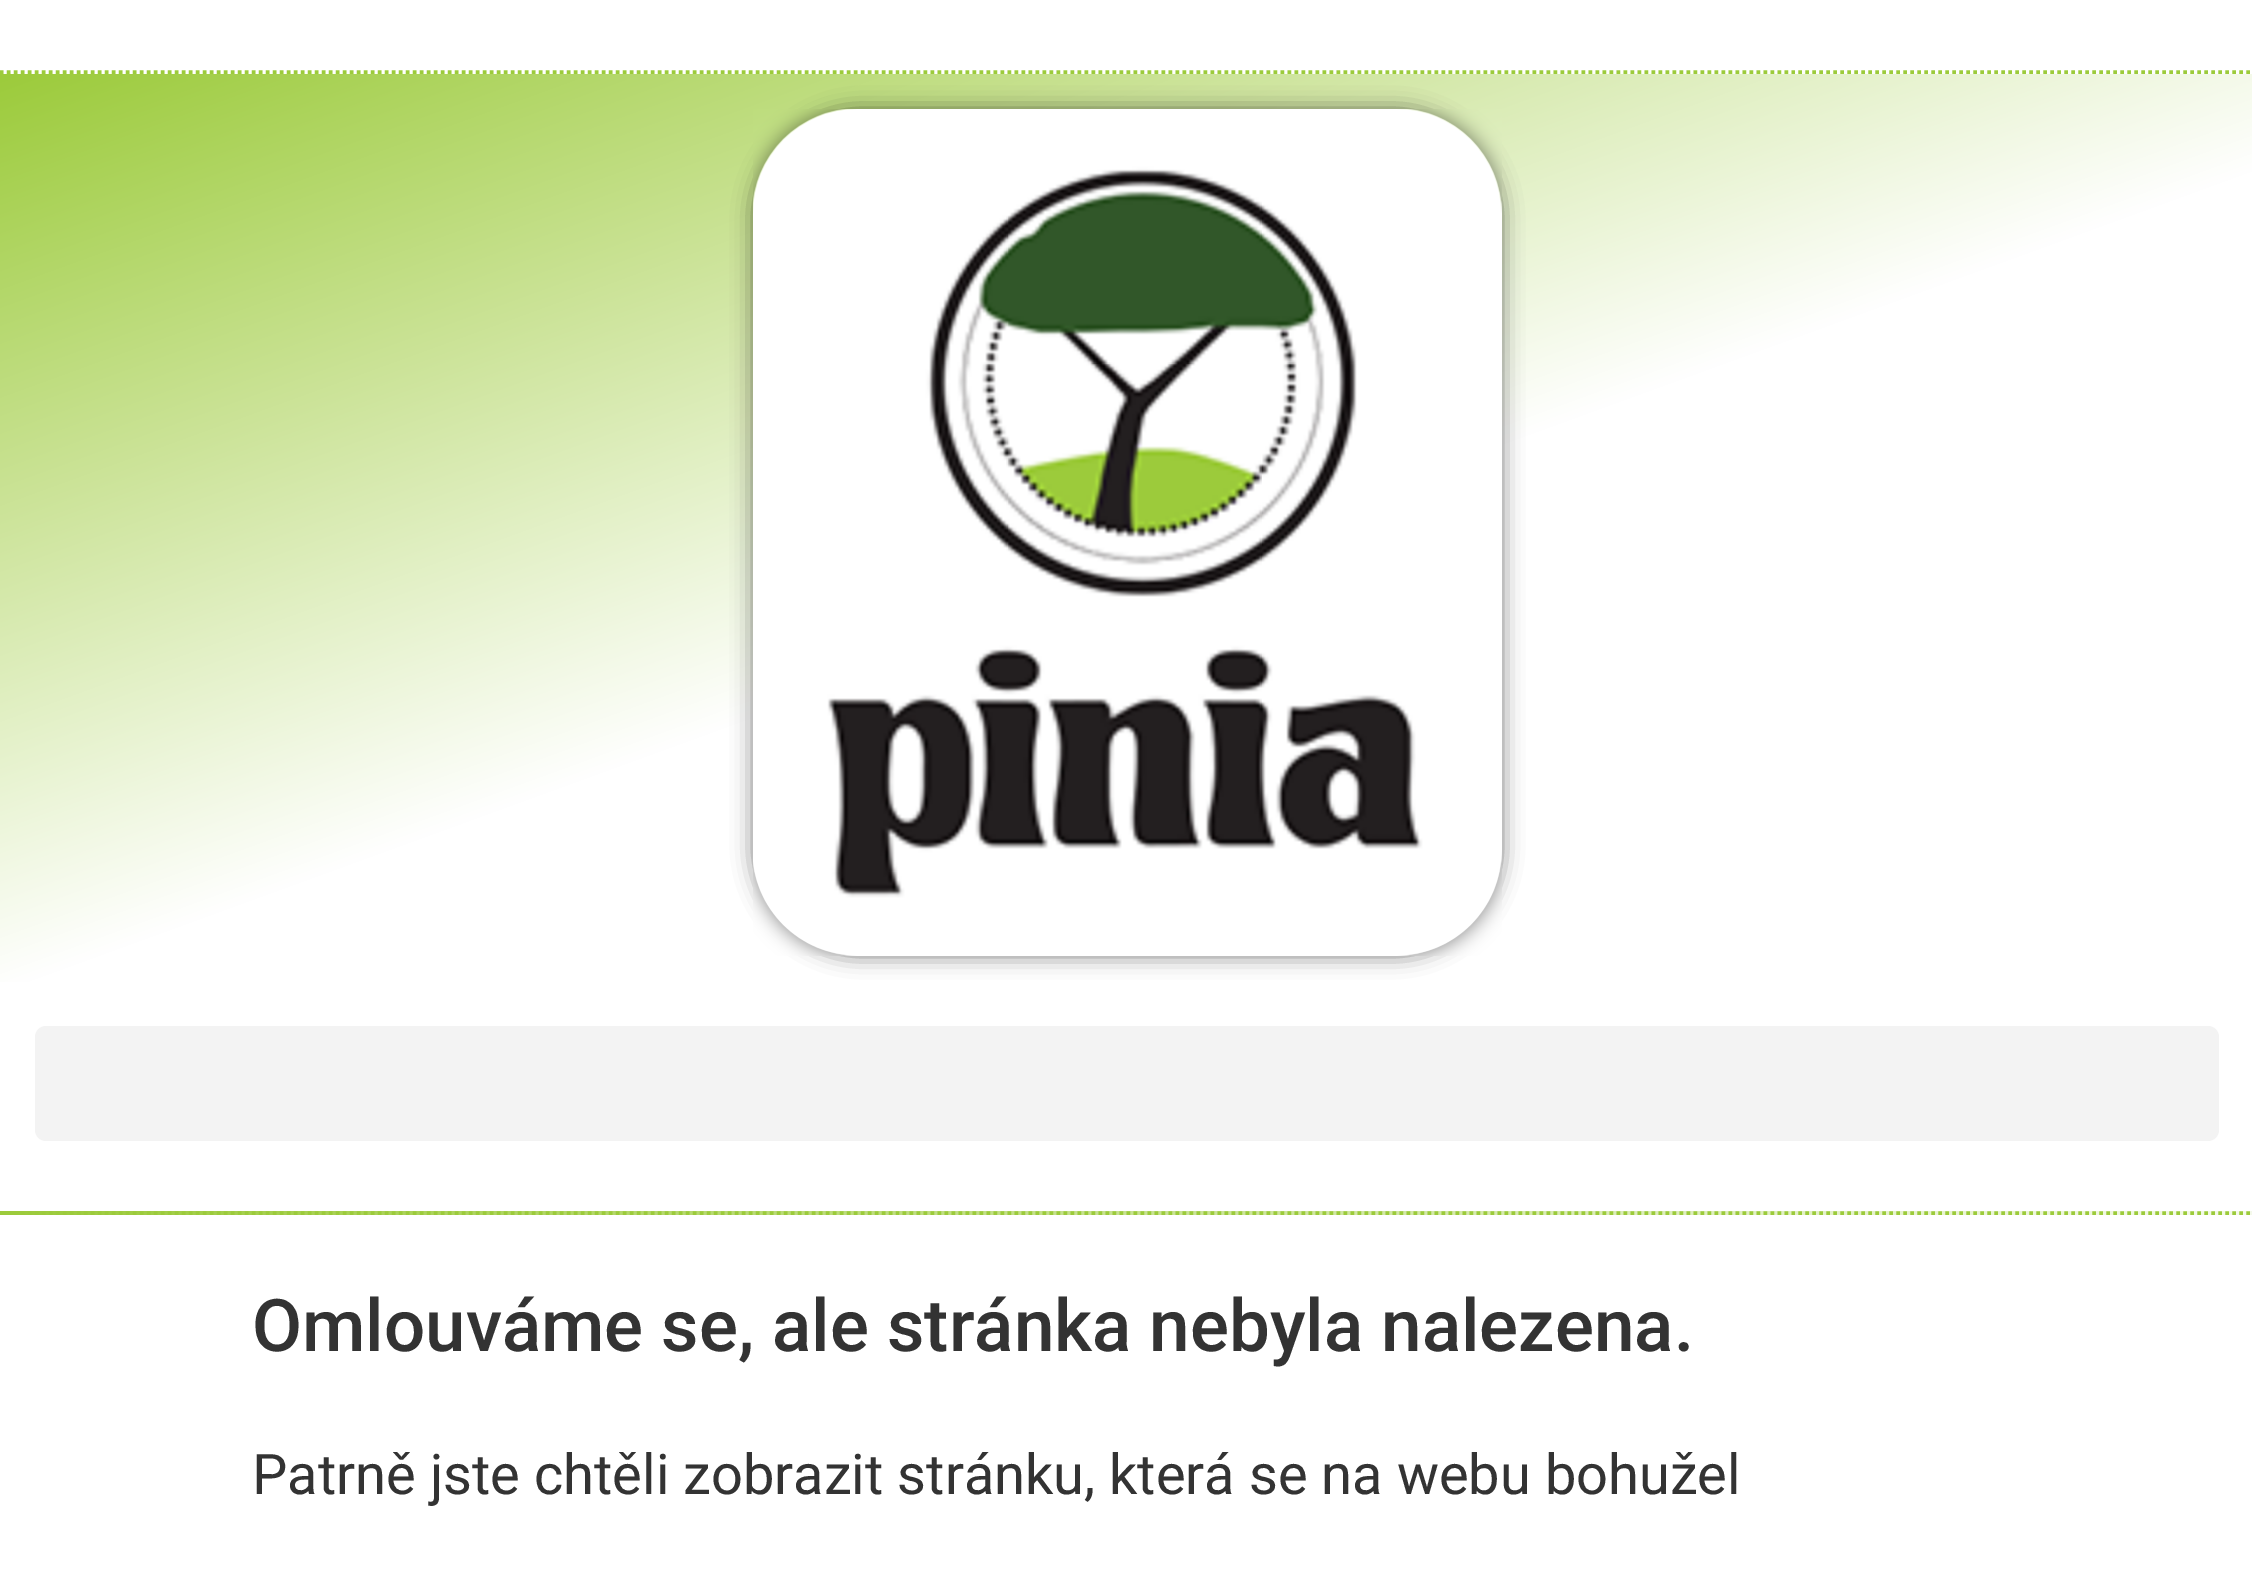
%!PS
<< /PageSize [2252 1571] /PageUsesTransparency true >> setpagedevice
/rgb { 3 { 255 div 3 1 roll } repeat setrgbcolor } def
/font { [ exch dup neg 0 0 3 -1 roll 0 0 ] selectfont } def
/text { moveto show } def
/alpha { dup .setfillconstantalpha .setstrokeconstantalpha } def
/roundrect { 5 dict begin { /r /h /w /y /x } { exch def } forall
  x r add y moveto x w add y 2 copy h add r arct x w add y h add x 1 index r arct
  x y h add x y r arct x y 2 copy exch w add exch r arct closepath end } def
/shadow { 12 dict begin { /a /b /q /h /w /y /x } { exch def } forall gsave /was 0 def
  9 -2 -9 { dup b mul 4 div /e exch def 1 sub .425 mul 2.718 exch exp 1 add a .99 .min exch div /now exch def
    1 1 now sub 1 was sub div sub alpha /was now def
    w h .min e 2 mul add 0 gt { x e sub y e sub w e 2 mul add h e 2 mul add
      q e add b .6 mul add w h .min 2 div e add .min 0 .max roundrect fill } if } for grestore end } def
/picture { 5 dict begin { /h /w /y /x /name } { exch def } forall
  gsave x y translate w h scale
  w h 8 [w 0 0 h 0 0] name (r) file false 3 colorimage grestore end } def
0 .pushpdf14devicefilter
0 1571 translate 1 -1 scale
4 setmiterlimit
255 255 255 rgb
0 0 2252 1571 rectfill
gsave 0 74 moveto 2252 0 rlineto 0 908 rlineto -2252 0 rlineto closepath clip newpath
<< /ShadingType 2 /ColorSpace /DeviceRGB /Coords [812 -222 1442 1507] /Extend [true true] /Function << /FunctionType 3 /Domain [0 1] /Functions [<< /FunctionType 2 /Domain [0 1] /C0 [0.612 0.796 0.231] /C1 [1 1 1] /N 1 >> << /FunctionType 2 /Domain [0 1] /C0 [1 1 1] /C1 [1 1 1] /N 1 >>] /Bounds [0.47] /Encode [0 1 0 1] >> >> shfill grestore
gsave 0 1211 moveto 2252 0 rlineto 0 4 rlineto -2252 0 rlineto closepath clip newpath
<< /ShadingType 2 /ColorSpace /DeviceRGB /Coords [812 915 1442 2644] /Extend [true true] /Function << /FunctionType 3 /Domain [0 1] /Functions [<< /FunctionType 2 /Domain [0 1] /C0 [0.612 0.796 0.231] /C1 [1 1 1] /N 1 >> << /FunctionType 2 /Domain [0 1] /C0 [1 1 1] /C1 [1 1 1] /N 1 >>] /Bounds [0.47] /Encode [0 1 0 1] >> >> shfill grestore
156 203 59 rgb
3.5 setlinewidth
[3.5 3.5] 0 setdash
0 72 moveto 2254 0 rlineto stroke
0 1213 moveto 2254 0 rlineto stroke
0 0 0 rgb
753 109 749 847 105 10.5 0.5 shadow
(img_01.rgb) 753 109 749 847 picture
243 243 243 rgb
35 1026 2184 115 11 roundrect fill
/Roboto-Medium 72.75 font
51 51 51 rgb
(Omlouváme se, ale stránka nebyla nalezena.) 252 1351 text
/Roboto-Regular 56 font
(Patrně jste chtěli zobrazit stránku, která se na webu bohužel) 252 1494 text
.poppdf14devicefilter showpage
